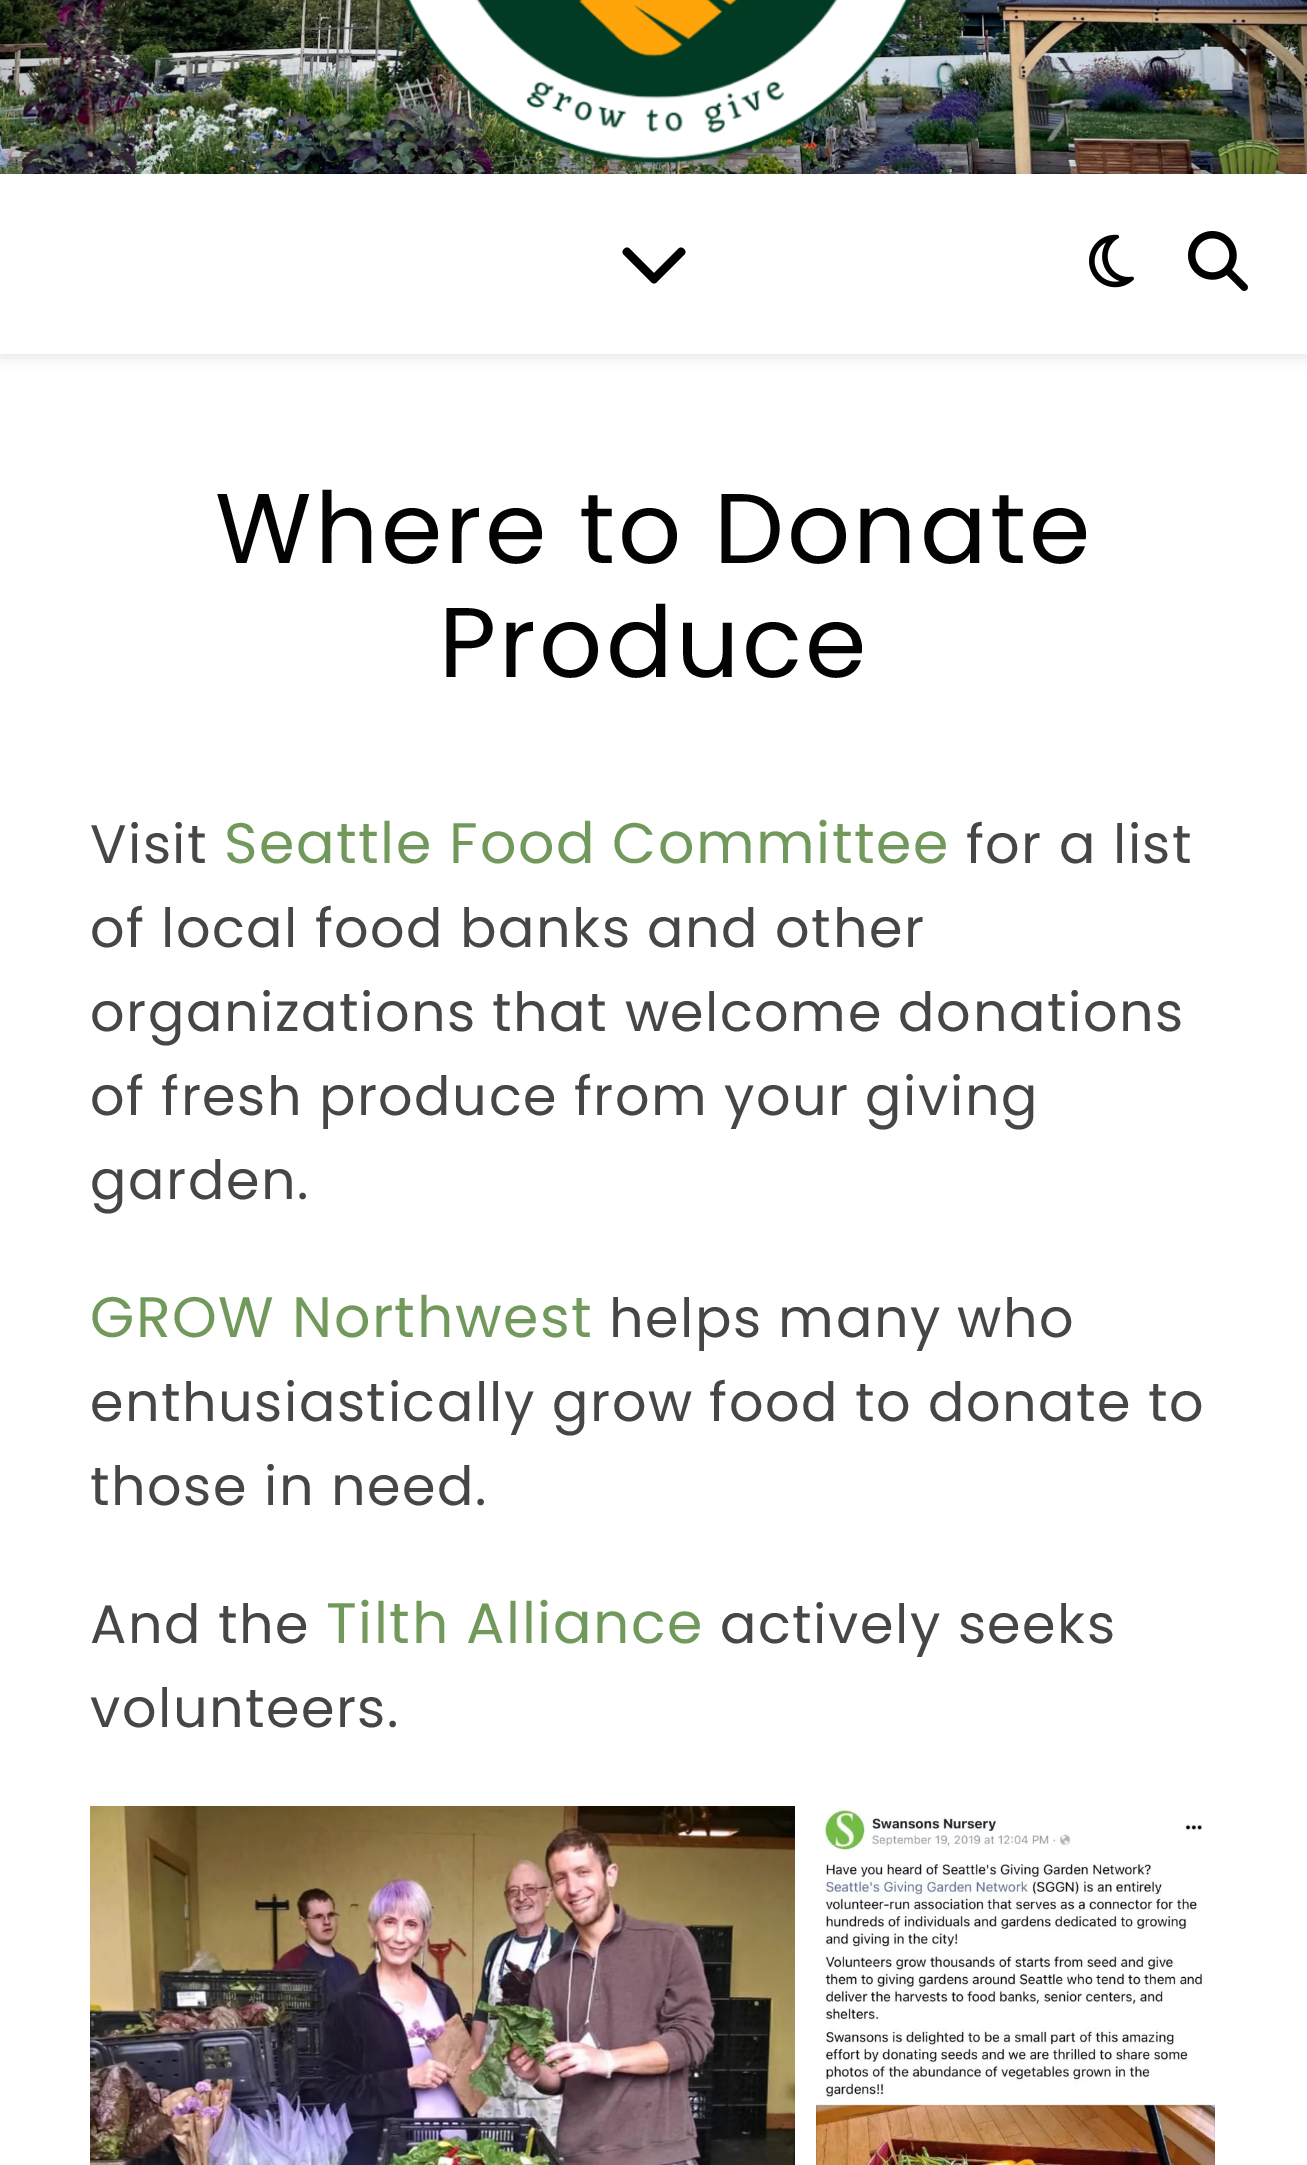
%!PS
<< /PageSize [1307 2165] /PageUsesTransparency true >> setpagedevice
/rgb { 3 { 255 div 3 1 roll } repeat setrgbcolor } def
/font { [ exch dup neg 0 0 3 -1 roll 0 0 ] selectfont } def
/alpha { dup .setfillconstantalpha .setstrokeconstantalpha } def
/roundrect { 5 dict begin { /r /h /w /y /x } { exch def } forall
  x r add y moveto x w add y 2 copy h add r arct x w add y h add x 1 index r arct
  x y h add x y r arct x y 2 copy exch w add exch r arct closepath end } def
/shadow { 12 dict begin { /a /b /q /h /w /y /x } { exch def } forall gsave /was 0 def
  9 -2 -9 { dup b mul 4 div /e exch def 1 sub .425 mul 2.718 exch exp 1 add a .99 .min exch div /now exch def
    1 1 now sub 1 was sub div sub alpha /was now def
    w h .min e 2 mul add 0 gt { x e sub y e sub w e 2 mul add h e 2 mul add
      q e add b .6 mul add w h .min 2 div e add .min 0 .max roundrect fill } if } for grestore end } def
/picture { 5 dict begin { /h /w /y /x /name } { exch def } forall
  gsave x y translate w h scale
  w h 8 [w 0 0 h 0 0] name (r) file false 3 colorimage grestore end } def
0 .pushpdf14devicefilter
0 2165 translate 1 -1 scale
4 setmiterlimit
255 255 255 rgb
0 0 1307 2165 rectfill
(img_01.rgb) 0 0 1307 174 picture
(img_02.rgb) 404 0 508 164 picture
gsave
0 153 moveto 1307 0 rlineto 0 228 rlineto -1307 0 rlineto closepath 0 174 moveto 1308 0 rlineto 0 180 rlineto -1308 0 rlineto closepath eoclip newpath
0 0 0 rgb
0 177 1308 180 0 7.5 0.1 shadow
grestore
0 0 0 rgb
651 282 moveto 2 2 4 2 6 0 rcurveto 27 -27 rlineto 2 -2 2 -4 0 -6 rcurveto -2 -2 -4 -2 -6 0 rcurveto -24 24 rlineto -24 -24 rlineto -2 -2 -4 -2 -6 0 rcurveto -2 2 -2 4 0 6 rcurveto closepath fill
(img_03.rgb) 1089 234 45 54 picture
(img_04.rgb) 1188 231 60 60 picture
(img_05.rgb) 90 1806 705 359 picture
(img_06.rgb) 816 1806 399 359 picture
/Poppins-Regular 99 font
3 3 3 rgb
215 563 moveto 3 0 (Where to Donate) ashow
439 677 moveto 3 0 (Produce) ashow
/Poppins-Regular 54 font
70 70 70 rgb
90 863 moveto 1.5 0 (Visit) ashow
/Poppins-Regular 57 font
113 153 92 rgb
224 863 moveto 1.5 0 (Seattle Food Committee) ashow
/Poppins-Regular 54 font
70 70 70 rgb
966 863 moveto 1.5 0 (for a list) ashow
90 947 moveto 1.5 0 (of local food banks and other) ashow
90 1031 moveto 1.5 0 (organizations that welcome donations) ashow
90 1115 moveto 1.5 0 (of fresh produce from your giving) ashow
90 1199 moveto 1.5 0 (garden.) ashow
/Poppins-Regular 57 font
113 153 92 rgb
90 1337 moveto 1.5 0 (GROW Northwest) ashow
/Poppins-Regular 54 font
70 70 70 rgb
609 1337 moveto 1.5 0 (helps many who) ashow
90 1421 moveto 1.5 0 (enthusiastically grow food to donate to) ashow
90 1505 moveto 1.5 0 (those in need.) ashow
90 1643 moveto 1.5 0 (And the) ashow
/Poppins-Regular 57 font
113 153 92 rgb
326 1643 moveto 1.5 0 (Tilth Alliance) ashow
/Poppins-Regular 54 font
70 70 70 rgb
720 1643 moveto 1.5 0 (actively seeks) ashow
90 1727 moveto 1.5 0 (volunteers.) ashow
.poppdf14devicefilter showpage
